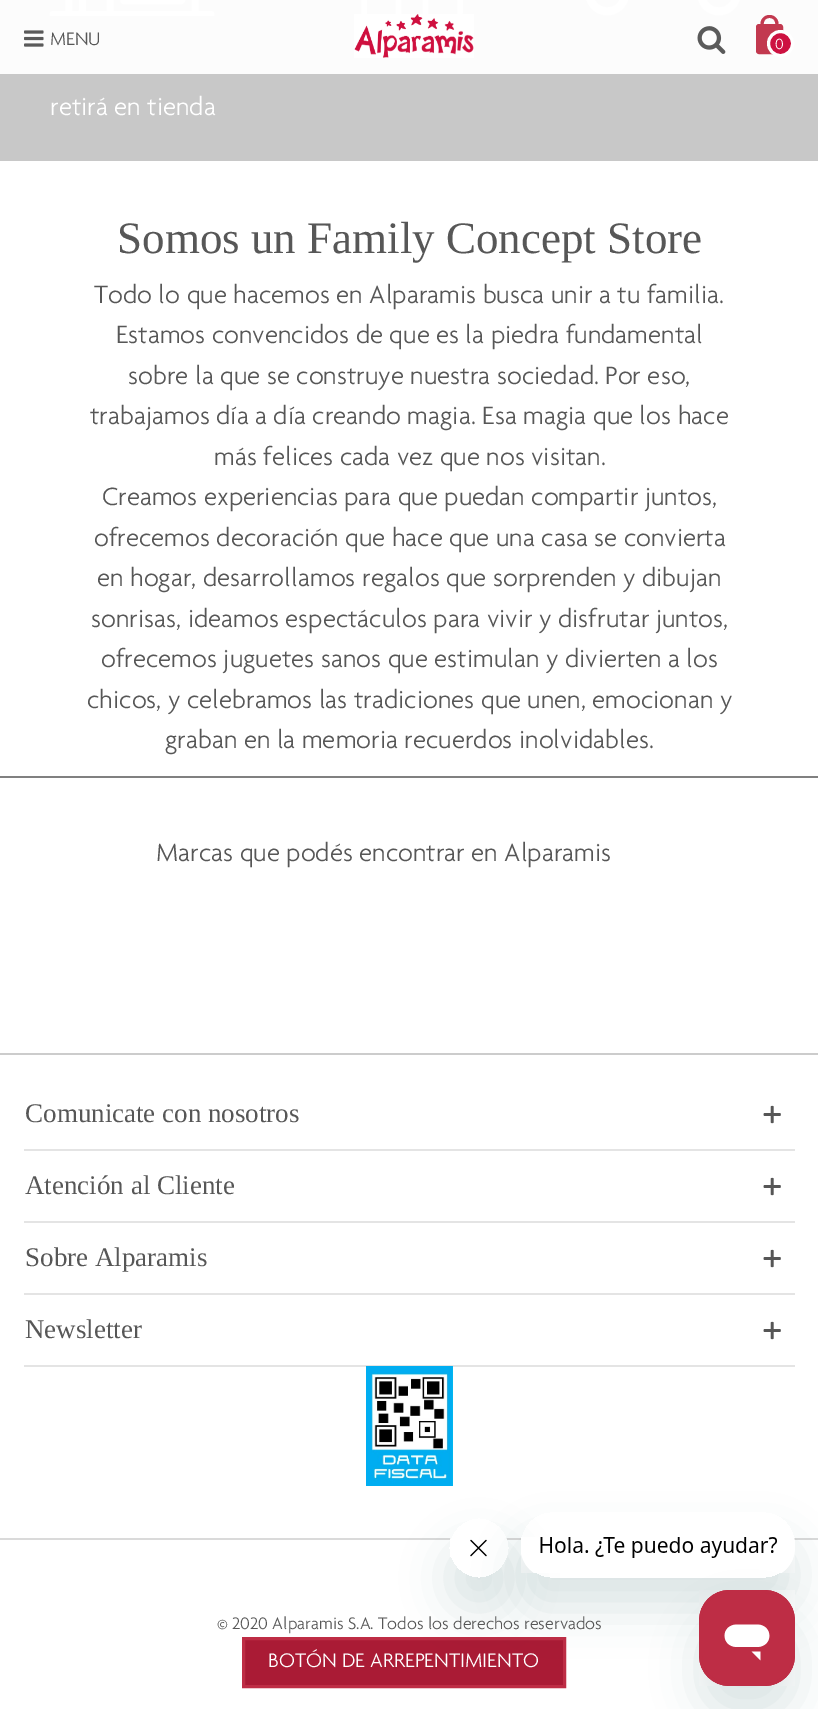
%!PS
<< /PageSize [818 1709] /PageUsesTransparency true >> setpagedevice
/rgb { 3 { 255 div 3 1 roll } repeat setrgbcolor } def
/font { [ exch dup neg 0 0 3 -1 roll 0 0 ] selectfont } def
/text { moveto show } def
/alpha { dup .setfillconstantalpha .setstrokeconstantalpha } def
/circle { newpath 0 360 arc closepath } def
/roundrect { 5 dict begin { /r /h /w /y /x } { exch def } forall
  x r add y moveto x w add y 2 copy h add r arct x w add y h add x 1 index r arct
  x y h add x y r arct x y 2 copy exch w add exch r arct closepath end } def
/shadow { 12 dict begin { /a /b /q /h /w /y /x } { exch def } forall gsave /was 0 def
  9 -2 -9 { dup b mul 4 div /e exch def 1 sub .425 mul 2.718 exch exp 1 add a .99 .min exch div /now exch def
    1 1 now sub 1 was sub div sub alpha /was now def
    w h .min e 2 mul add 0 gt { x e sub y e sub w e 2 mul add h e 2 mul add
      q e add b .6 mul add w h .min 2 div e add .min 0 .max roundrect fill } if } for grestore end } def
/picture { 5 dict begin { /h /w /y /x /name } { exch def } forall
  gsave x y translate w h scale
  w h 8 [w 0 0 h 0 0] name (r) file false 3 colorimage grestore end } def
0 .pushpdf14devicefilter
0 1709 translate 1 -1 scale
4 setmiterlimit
255 255 255 rgb
0 0 818 1709 rectfill
200 200 200 rgb
0 0 818 161 rectfill
(img_04.rgb) 361 0 102 14 picture
(img_05.rgb) 586 0 154 16 picture
(img_06.rgb) 49 0 166 16 picture
0.95 alpha
255 255 255 rgb
0 0 818 74 rectfill
1 alpha
(img_01.rgb) 24 30 20 17 picture
(img_02.rgb) 354 14 120 44 picture
(img_03.rgb) 697 26 29 28 picture
194 57 79 rgb
757.5 25.5 24 27 1.5 roundrect gsave fill grestore
3 setlinewidth
stroke
769.5 15 moveto 5 0 9 4 9 9 rcurveto 0 6 rlineto -18 0 rlineto 0 -6 rlineto 0 -5 4 -9 9 -9 rcurveto closepath 769.5 18 moveto 7 0 6 7.5 6 12 rcurveto -12 0 rlineto 0 -4.5 -1 -12 6 -12 rcurveto closepath eofill
205 18 65 rgb
780.5 43.5 12 circle gsave fill grestore
255 255 255 rgb
stroke
128 128 128 rgb
0 776 818 2 rectfill
204 204 204 rgb
0 1053 818 2 rectfill
228 228 228 rgb
24 1149 771 2 rectfill
(img_07.rgb) 763 1105 18 19 picture
24 1221 771 2 rectfill
(img_07.rgb) 763 1177 18 19 picture
24 1293 771 2 rectfill
(img_07.rgb) 763 1249 18 19 picture
24 1365 771 2 rectfill
(img_07.rgb) 763 1321 18 19 picture
(img_08.rgb) 366 1366 87 120 picture
218 218 218 rgb
0 1538 818 2 rectfill
170 27 53 rgb
243.5 1638.5 moveto 321 0 rlineto 0 48 rlineto -321 0 rlineto closepath gsave fill grestore
190 45 69 rgb
stroke
gsave
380 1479 moveto 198 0 rlineto 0 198 rlineto -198 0 rlineto closepath 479 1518 moveto 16.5 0 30 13.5 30 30 rcurveto 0 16.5 -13.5 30 -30 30 rcurveto -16.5 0 -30 -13.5 -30 -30 rcurveto 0 -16.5 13.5 -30 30 -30 rcurveto closepath eoclip newpath
23 73 77 rgb
449 1548 60 60 30 22.5 0.15 shadow
grestore
(img_10.rgb) 450 1538 57 19 picture
gsave
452 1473 moveto 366 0 rlineto 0 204 rlineto -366 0 rlineto closepath 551 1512 moveto 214 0 rlineto 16.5 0 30 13.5 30 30 rcurveto 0 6 rlineto 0 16.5 -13.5 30 -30 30 rcurveto -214 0 rlineto -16.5 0 -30 -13.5 -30 -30 rcurveto 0 -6 rlineto 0 -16.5 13.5 -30 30 -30 rcurveto closepath eoclip newpath
23 73 77 rgb
521 1542 274 66 30 22.5 0.15 shadow
grestore
(img_09.rgb) 521 1537 274 36 picture
23 73 77 rgb
699 1620 96 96 30 22.5 0.15 shadow
(img_11.rgb) 699 1590 96 96 picture
/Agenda-Light 19.5 font
87 87 87 rgb
(MENU) 50 45 text
/Agenda-Light 16 font
255 255 255 rgb
(0) 775 49 text
/Agenda-Light 27 font
(retirá en tienda) 50 115 text
/LiberationSerif-Regular 45 font
87 87 87 rgb
(Somos un Family Concept Store) 117 253 text
/Agenda-Light 27 font
(Todo lo que hacemos en Alparamis busca unir a tu familia.) 94 303 text
(Estamos convencidos de que es la piedra fundamental) 116 343 text
(sobre la que se construye nuestra sociedad. Por eso,) 128 384 text
(trabajamos día a día creando magia. Esa magia que los hace) 90 424 text
(más felices cada vez que nos visitan.) 214 465 text
(Creamos experiencias para que puedan compartir juntos,) 102 505 text
(ofrecemos decoración que hace que una casa se convierta) 94 546 text
(en hogar, desarrollamos regalos que sorprenden y dibujan) 97 586 text
(sonrisas, ideamos espectáculos para vivir y disfrutar juntos,) 91 627 text
(ofrecemos juguetes sanos que estimulan y divierten a los) 101 667 text
(chicos, y celebramos las tradiciones que unen, emocionan y) 87 708 text
(graban en la memoria recuerdos inolvidables.) 165 748 text
(Marcas que podés encontrar en Alparamis) 156 861 text
/LiberationSerif-Regular 27 font
(Comunicate con nosotros) 25 1122 text
(Atención al Cliente) 25 1194 text
(Sobre Alparamis) 25 1266 text
(Newsletter) 25 1338 text
/Agenda-Light 18 font
(© 2020 Alparamis S.A. Todos los derechos reservados) 217 1629 text
/Agenda-Light 21.25 font
255 255 255 rgb
(BOTÓN DE ARREPENTIMIENTO) 268 1667 text
.poppdf14devicefilter showpage
